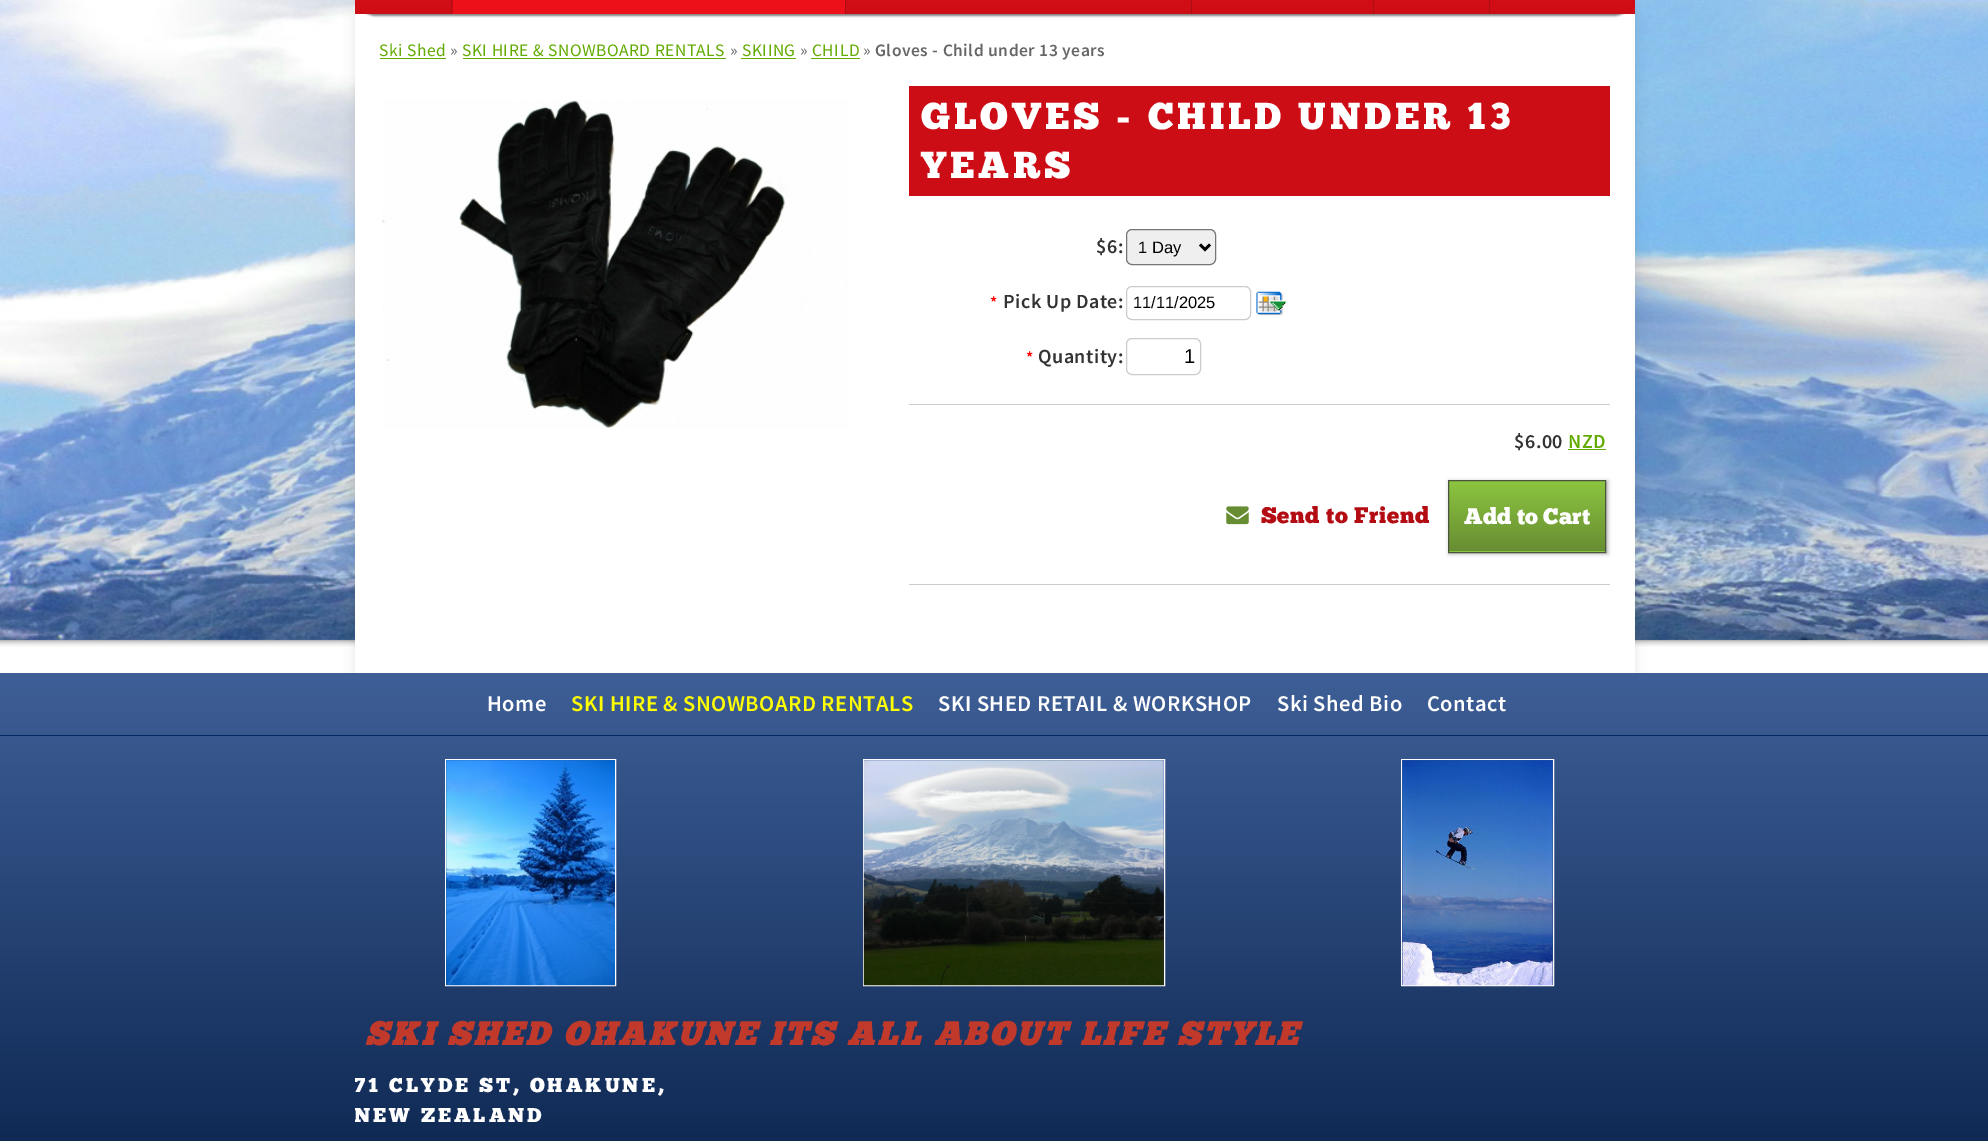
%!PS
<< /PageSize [1988 1141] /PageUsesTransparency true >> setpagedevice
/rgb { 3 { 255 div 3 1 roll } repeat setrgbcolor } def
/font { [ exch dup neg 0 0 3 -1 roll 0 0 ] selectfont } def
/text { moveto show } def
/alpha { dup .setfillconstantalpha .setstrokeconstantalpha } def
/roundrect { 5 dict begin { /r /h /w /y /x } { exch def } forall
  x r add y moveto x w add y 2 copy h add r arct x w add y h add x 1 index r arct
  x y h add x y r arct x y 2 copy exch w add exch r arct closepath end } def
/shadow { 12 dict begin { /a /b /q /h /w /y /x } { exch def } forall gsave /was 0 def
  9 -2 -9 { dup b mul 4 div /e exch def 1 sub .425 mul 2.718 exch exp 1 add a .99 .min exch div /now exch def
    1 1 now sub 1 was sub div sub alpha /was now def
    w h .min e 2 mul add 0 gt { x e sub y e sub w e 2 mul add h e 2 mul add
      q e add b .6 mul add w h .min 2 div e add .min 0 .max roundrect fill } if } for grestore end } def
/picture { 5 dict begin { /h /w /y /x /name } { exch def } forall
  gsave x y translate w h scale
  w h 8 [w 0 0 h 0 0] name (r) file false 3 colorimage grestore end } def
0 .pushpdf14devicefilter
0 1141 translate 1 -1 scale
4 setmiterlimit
255 255 255 rgb
0 0 1988 1141 rectfill
(img_01.rgb) 0 0 1988 647 picture
0 0 0 rgb
355 14 1280 659 0 6 0.1 shadow
255 255 255 rgb
355 14 1280 659 rectfill
0 0 0 rgb
355 -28 1280 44 25 1 0.5 shadow
gsave 355 0 moveto 1280 0 rlineto 0 14 rlineto -1280 0 rlineto closepath clip newpath
<< /ShadingType 2 /ColorSpace /DeviceRGB /Coords [995 -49 995 14] /Extend [true true] /Function << /FunctionType 2 /Domain [0 1] /C0 [0.886 0.059 0.094] /C1 [0.804 0.051 0.082] /N 1 >> >> shfill grestore
171 15 22 rgb
451 0 1 14 rectfill
845 0 1 14 rectfill
237 16 25 rgb
453 0 392 14 rectfill
171 15 22 rgb
1191 0 1 14 rectfill
1373 0 1 14 rectfill
1489 0 1 14 rectfill
99 171 1 rgb
380 58 66 1 rectfill
463 58 263 1 rectfill
741 58 55 1 rectfill
811 58 49 1 rectfill
(img_02.rgb) 382 100 466 329 picture
205 13 21 rgb
909 86 701 110 rectfill
239 239 239 rgb
1126.5 229.5 89 35 5.5 roundrect gsave fill grestore
118 118 118 rgb
stroke
0 0 0 rgb
2.5 setlinewidth
1200 244.5 moveto 5 5 rlineto 5 -5 rlineto stroke
204 204 204 rgb
1 setlinewidth
1126.5 286.5 124 33 5.5 roundrect stroke
(img_03.rgb) 1256 291 31 25 picture
1126.5 338.5 74 36 5.5 roundrect stroke
909 404 701 1 rectfill
909 584 701 1 rectfill
99 171 1 rgb
1568 449 38 1 rectfill
(img_04.rgb) 1226 506 23 19 picture
0 0 0 rgb
1449 481 159 73 0 2 0.3 shadow
gsave 1449 481 moveto 156 0 rlineto 0 70 rlineto -156 0 rlineto closepath clip newpath
<< /ShadingType 2 /ColorSpace /DeviceRGB /Coords [1527 481 1527 551] /Extend [true true] /Function << /FunctionType 2 /Domain [0 1] /C0 [0.549 0.773 0.247] /C1 [0.404 0.553 0.2] /N 1 >> >> shfill grestore
gsave 1448 551 moveto 158 0 rlineto 0 1 rlineto -158 0 rlineto closepath clip newpath
<< /ShadingType 2 /ColorSpace /DeviceRGB /Coords [1527 551 1527 621] /Extend [true true] /Function << /FunctionType 2 /Domain [0 1] /C0 [0.549 0.773 0.247] /C1 [0.404 0.553 0.2] /N 1 >> >> shfill grestore
75 85 62 rgb
1448.5 480.5 157 72 rectstroke
gsave 0 673 moveto 1988 0 rlineto 0 468 rlineto -1988 0 rlineto closepath clip newpath
<< /ShadingType 2 /ColorSpace /DeviceRGB /Coords [994 672 994 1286] /Extend [true true] /Function << /FunctionType 2 /Domain [0 1] /C0 [0.243 0.373 0.592] /C1 [0.008 0.102 0.255] /N 1 >> >> shfill grestore
4 40 99 rgb
0 735 1988 1 rectfill
255 255 255 rgb
445.5 759.5 170 226 rectstroke
(img_05.rgb) 446 760 169 226 picture
863.5 759.5 301 226 rectstroke
(img_06.rgb) 863 760 301 226 picture
1401.5 759.5 152 226 rectstroke
(img_07.rgb) 1402 760 151 226 picture
/SourceSansPro-Regular 17.5 font
99 171 1 rgb
379 56 moveto 0.5 0 (Ski Shed) ashow
102 102 102 rgb
450 56 moveto 0.5 0 (») ashow
99 171 1 rgb
462 56 moveto 0.5 0 (SKI HIRE & SNOWBOARD RENTALS) ashow
102 102 102 rgb
730 56 moveto 0.5 0 (») ashow
99 171 1 rgb
742 56 moveto 0.5 0 (SKIING) ashow
102 102 102 rgb
800 56 moveto 0.5 0 (») ashow
99 171 1 rgb
812 56 moveto 0.5 0 (CHILD) ashow
102 102 102 rgb
863 56 moveto 0.5 0 (») ashow
/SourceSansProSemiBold-SemiBold 17.5 font
875 56 moveto 0.5 0 (Gloves - Child under 13 years) ashow
/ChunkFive-Regular 37.5 font
255 255 255 rgb
921 129 moveto 3.75 0 (GLOVES - CHILD UNDER 13) ashow
921 178 moveto 3.75 0 (YEARS) ashow
/SourceSansProSemiBold-SemiBold 20 font
51 51 51 rgb
1096 253 moveto 0.5 0 ($6:) ashow
/LiberationSans-Regular 16.5 font
0 0 0 rgb
(1 Day) 1138 253 text
/SourceSansProSemiBold-SemiBold 16.5 font
255 0 0 rgb
990 308 moveto 0.5 0 (*) ashow
/SourceSansProSemiBold-SemiBold 20 font
51 51 51 rgb
1003 308 moveto 0.5 0 (Pick Up Date:) ashow
/LiberationSans-Regular 16.5 font
0 0 0 rgb
(11/11/2025) 1133 308 text
/SourceSansProSemiBold-SemiBold 16.5 font
255 0 0 rgb
1026 363 moveto 0.5 0 (*) ashow
/SourceSansProSemiBold-SemiBold 20 font
51 51 51 rgb
1038 363 moveto 0.5 0 (Quantity:) ashow
/LiberationSans-Regular 20 font
0 0 0 rgb
(1) 1184 363 text
/SourceSansProSemiBold-SemiBold 20 font
51 51 51 rgb
1514 448 moveto 0.5 0 ($6.00) ashow
99 171 1 rgb
1568 448 moveto 0.5 0 (NZD) ashow
/ChunkFive-Regular 22.5 font
180 12 19 rgb
1261 523 moveto 0.5 0 (Send to Friend) ashow
255 255 255 rgb
(Add to Cart) 1464 524 text
/SourceSansProSemiBold-SemiBold 22.5 font
487 711 moveto 0.5 0 (Home) ashow
255 255 0 rgb
571 711 moveto 0.5 0 (SKI HIRE & SNOWBOARD RENTALS) ashow
255 255 255 rgb
938 711 moveto 0.5 0 (SKI SHED RETAIL & WORKSHOP) ashow
1277 711 moveto 0.5 0 (Ski Shed Bio) ashow
1427 711 moveto 0.5 0 (Contact) ashow
/ChunkFive-BoldItalic 32.5 font
192 57 43 rgb
365 1045 moveto 3 0 (SKI SHED OHAKUNE ITS ALL ABOUT LIFE STYLE) ashow
gsave
355 736 1280 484 rectclip
/ChunkFive-Regular 20 font
255 255 255 rgb
354 1092 moveto 3 0 (71 CLYDE ST, OHAKUNE,) ashow
354 1122 moveto 3 0 (NEW ZEALAND) ashow
grestore
.poppdf14devicefilter showpage
